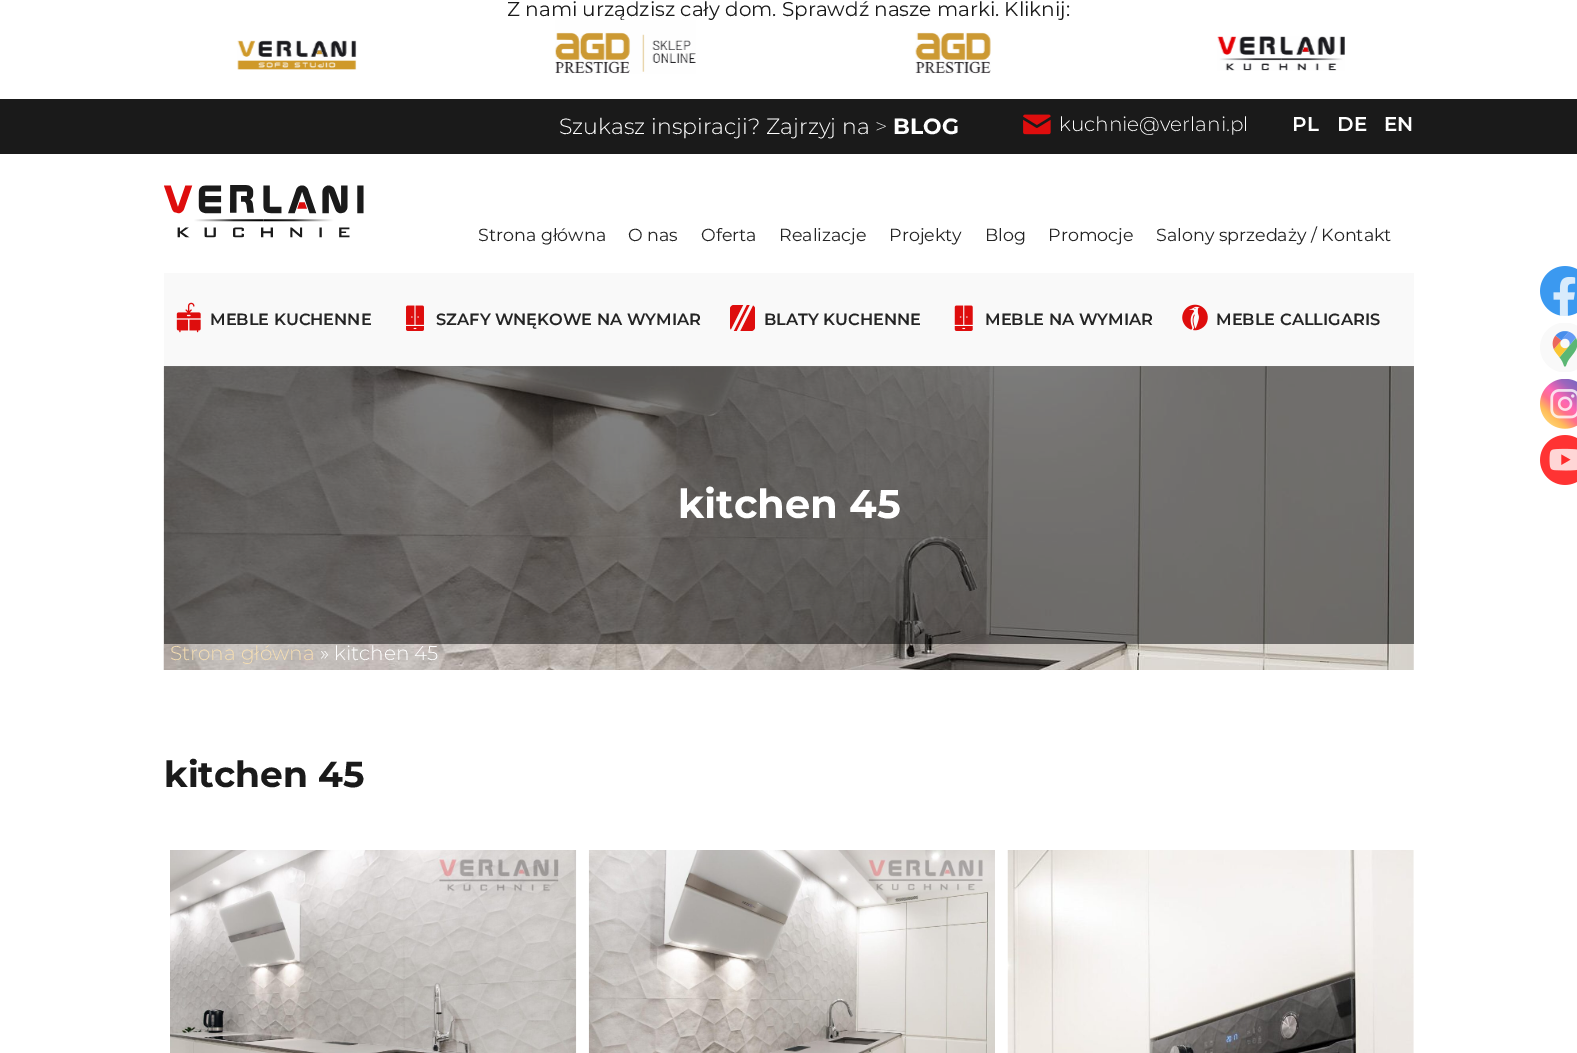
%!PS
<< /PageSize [1577 1053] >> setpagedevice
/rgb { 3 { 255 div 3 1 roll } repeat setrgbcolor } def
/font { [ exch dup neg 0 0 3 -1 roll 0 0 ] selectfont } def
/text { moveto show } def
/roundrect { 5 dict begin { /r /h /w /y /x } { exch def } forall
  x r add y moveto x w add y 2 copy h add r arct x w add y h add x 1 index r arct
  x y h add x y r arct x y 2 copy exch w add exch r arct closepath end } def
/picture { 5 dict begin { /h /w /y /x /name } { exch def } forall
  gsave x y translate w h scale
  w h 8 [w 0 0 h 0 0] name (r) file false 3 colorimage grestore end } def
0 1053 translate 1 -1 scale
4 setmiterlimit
255 255 255 rgb
0 0 1577 1053 rectfill
128 128 128 rgb
164 366 1250 278 rectfill
(img_01.rgb) 237 40 120 30 picture
(img_03.rgb) 915 32 76 42 picture
(img_04.rgb) 1217 36 128 35 picture
26 26 26 rgb
0 99 1577 55 rectfill
(img_05.rgb) 1023 114 28 21 picture
(img_06.rgb) 164 185 200 53 picture
249 249 249 rgb
164 273 1250 93 rectfill
(img_07.rgb) 176 302 25 31 picture
(img_08.rgb) 406 305 18 26 picture
222 13 13 rgb
730 305 25 26 4 roundrect fill
249 249 249 rgb
2.7 setlinewidth
748.5 298 moveto -19.5 39 rlineto 755 298 moveto -19.5 39 rlineto stroke
(img_09.rgb) 954 305 19 26 picture
(img_10.rgb) 1182 304 26 27 picture
(img_11.rgb) 1540 266 37 50 picture
(img_12.rgb) 1540 323 37 49 picture
(img_13.rgb) 1540 379 37 50 picture
(img_14.rgb) 1540 435 37 50 picture
(img_15.rgb) 163 366 1251 304 picture
(img_16.rgb) 170 850 407 203 picture
(img_17.rgb) 588 850 407 203 picture
(img_18.rgb) 1007 850 407 203 picture
/Montserrat-Regular 20 font
26 26 26 rgb
(Z nami urządzisz cały dom. Sprawdź nasze marki. Kliknij:) 507 16 text
(img_02.rgb) 555 20 141 54 picture
/Montserrat-Light 22 font
255 255 255 rgb
(Szukasz inspiracji? Zajrzyj na) 559 134 text
/Montserrat-ExtraLight 22 font
(>) 875 134 text
/Montserrat-Bold 22 font
(BLOG) 893 134 text
/Montserrat-Light 20 font
(kuchnie@verlani.pl) 1059 131 text
/Montserrat-SemiBold 20 font
(PL) 1292 131 text
(DE) 1337 131 text
(EN) 1384 131 text
/Montserrat-Regular 17.5 font
36 36 36 rgb
(Strona główna) 478 241 text
(O nas) 628 241 text
(Oferta) 701 241 text
(Realizacje) 779 241 text
(Projekty) 889 241 text
(Blog) 985 241 text
(Promocje) 1048 241 text
(Salony sprzedaży / Kontakt) 1156 241 text
/Montserrat-SemiBold 16.25 font
(MEBLE KUCHENNE) 210 325 text
(SZAFY WNĘKOWE NA WYMIAR) 436 325 text
(BLATY KUCHENNE) 764 325 text
(MEBLE NA WYMIAR) 985 325 text
(MEBLE CALLIGARIS) 1216 325 text
/Montserrat-Bold 40 font
255 255 255 rgb
(kitchen 45) 678 518 text
/Montserrat-Light 20 font
245 222 179 rgb
(Strona główna) 170 660 text
255 255 255 rgb
(» kitchen 45) 320 660 text
/Montserrat-Bold 36 font
26 26 26 rgb
(kitchen 45) 164 787 text
showpage
